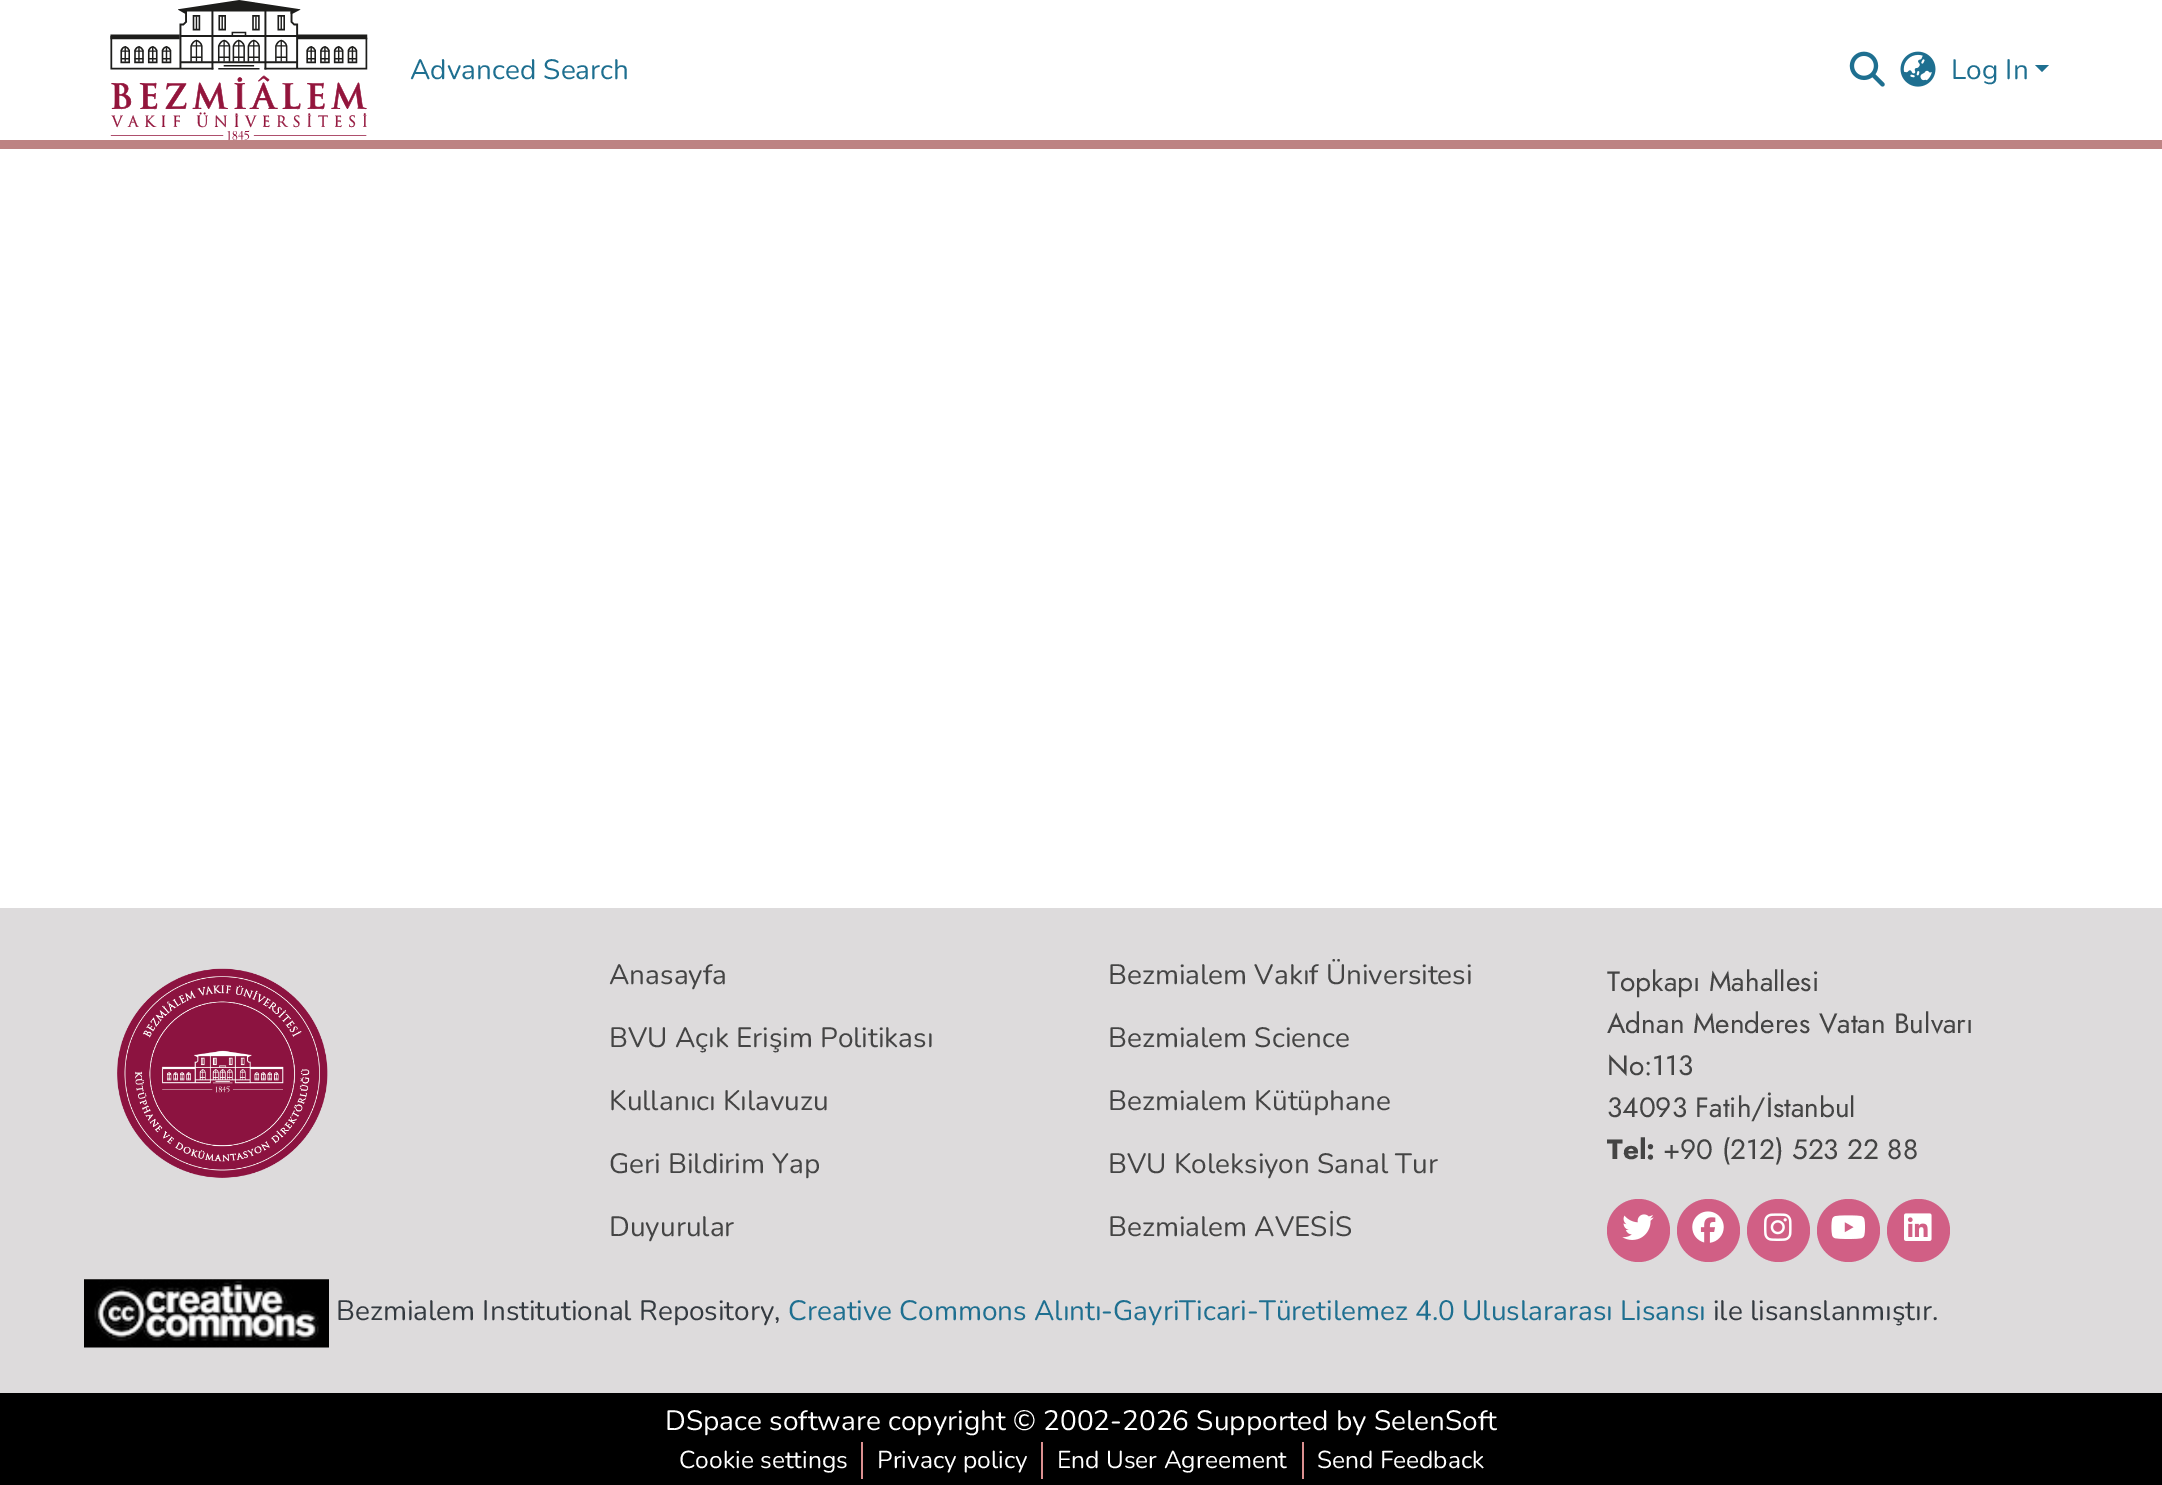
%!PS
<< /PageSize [2162 1485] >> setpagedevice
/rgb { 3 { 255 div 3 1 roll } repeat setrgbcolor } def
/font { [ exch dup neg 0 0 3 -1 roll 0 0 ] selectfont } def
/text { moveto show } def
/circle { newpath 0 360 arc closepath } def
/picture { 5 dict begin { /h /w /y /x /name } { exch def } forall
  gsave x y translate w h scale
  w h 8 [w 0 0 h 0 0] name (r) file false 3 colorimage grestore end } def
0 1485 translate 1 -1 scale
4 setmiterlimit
255 255 255 rgb
0 0 2162 1485 rectfill
189 131 131 rgb
0 140 2162 9 rectfill
(img_01.rgb) 110 0 258 140 picture
(img_02.rgb) 1849 51 36 36 picture
(img_03.rgb) 1900 51 36 36 picture
30 111 144 rgb
2035 65 moveto 14 0 rlineto -7 7 rlineto closepath fill
0 0 0 rgb
0 1393 2162 92 rectfill
221 219 220 rgb
0 908 2162 485 rectfill
(img_04.rgb) 117 968 211 210 picture
209 95 133 rgb
1638.5 1230.5 31.5 circle fill
(img_05.rgb) 1622 1214 32 26 picture
1708.5 1230.5 31.5 circle fill
(img_06.rgb) 1692 1211 32 32 picture
1778.5 1230.5 31.5 circle fill
(img_07.rgb) 1764 1213 28 28 picture
1848.5 1230.5 31.5 circle fill
(img_08.rgb) 1831 1215 34 24 picture
1918.5 1230.5 31.5 circle fill
(img_09.rgb) 1904 1213 28 28 picture
(img_10.rgb) 84 1279 245 69 picture
219 144 144 rgb
861 1442 2 37 rectfill
1041 1442 2 37 rectfill
1302 1442 2 37 rectfill
/Nunito-Regular 28 font
30 111 144 rgb
(Advanced Search) 410 79 text
(Log In) 1951 79 text
68 68 68 rgb
(Anasayfa) 609 984 text
(BVU Açık Erişim Politikası) 609 1047 text
(Kullanıcı Kılavuzu) 609 1110 text
(Geri Bildirim Yap) 609 1173 text
(Duyurular) 609 1236 text
(Bezmialem Vakıf Üniversitesi) 1108 984 text
(Bezmialem Science) 1108 1047 text
(Bezmialem Kütüphane) 1108 1110 text
(BVU Koleksiyon Sanal Tur) 1108 1173 text
(Bezmialem AVESİS) 1108 1236 text
/Jost-Regular 28 font
(Topkapı Mahallesi) 1607 991 text
(Adnan Menderes Vatan Bulvarı) 1607 1033 text
(No:113) 1607 1075 text
(34093 Fatih/İstanbul) 1607 1117 text
/Jost-Bold 28 font
(Tel:) 1607 1159 text
/Jost-Regular 28 font
(+90 \(212\) 523 22 88) 1663 1159 text
/Nunito-Regular 28 font
52 58 64 rgb
(Bezmialem Institutional Repository,) 336 1320 text
30 111 144 rgb
(Creative Commons Alıntı-GayriTicari-Türetilemez 4.0 Uluslararası Lisansı) 788 1320 text
52 58 64 rgb
(ile lisanslanmıştır.) 1713 1320 text
255 255 255 rgb
(DSpace software copyright © 2002-2026 Supported by SelenSoft) 665 1430 text
/Nunito-Regular 24.5 font
(Cookie settings) 679 1468 text
(Privacy policy) 877 1468 text
(End User Agreement) 1057 1468 text
(Send Feedback) 1317 1468 text
showpage
